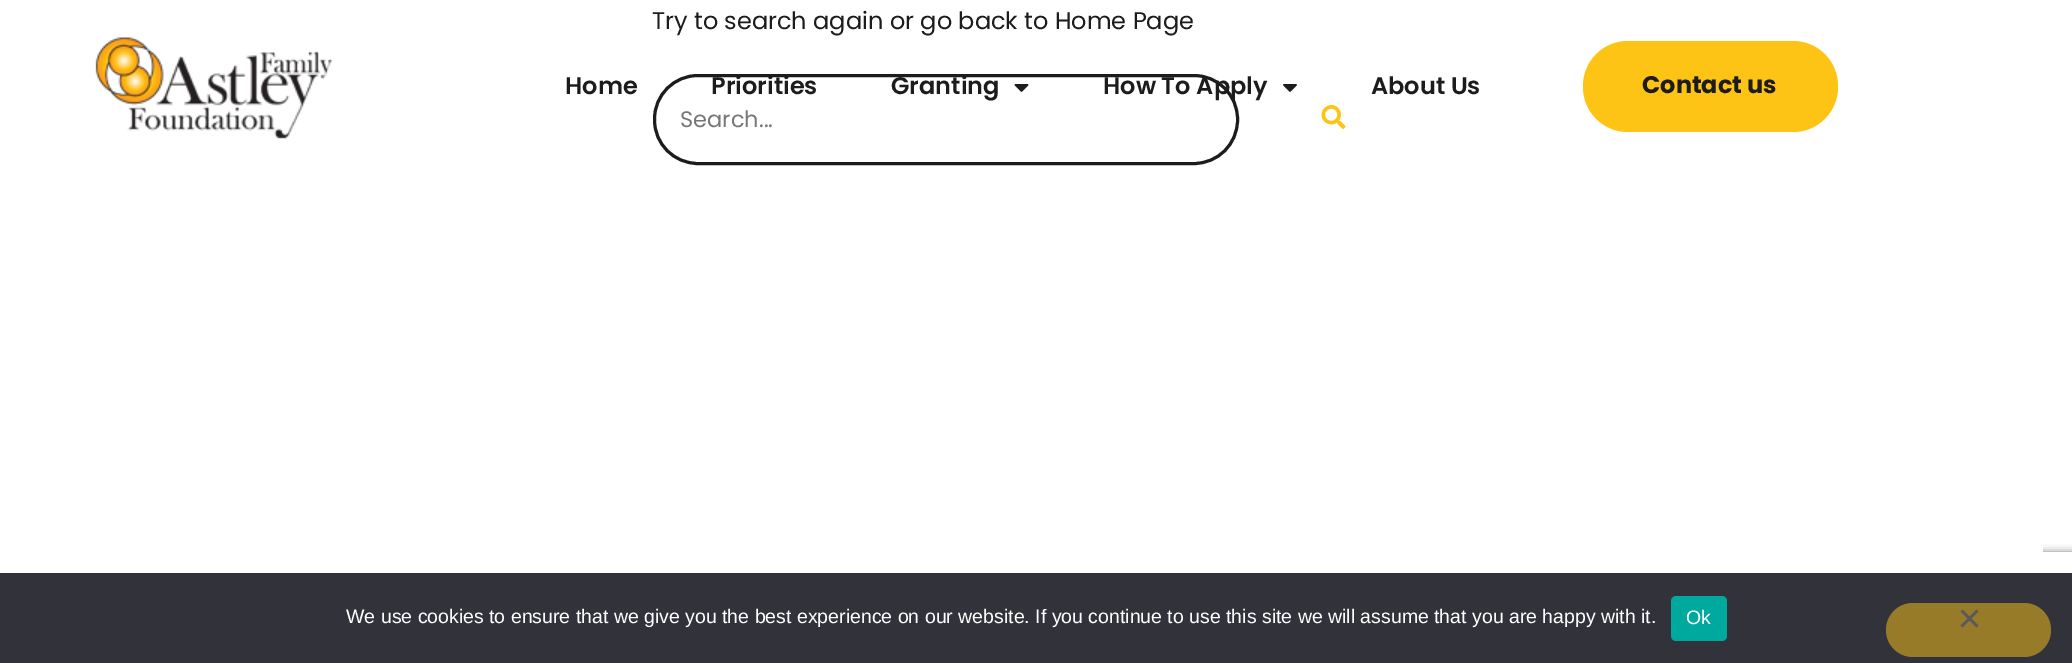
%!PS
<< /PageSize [2072 663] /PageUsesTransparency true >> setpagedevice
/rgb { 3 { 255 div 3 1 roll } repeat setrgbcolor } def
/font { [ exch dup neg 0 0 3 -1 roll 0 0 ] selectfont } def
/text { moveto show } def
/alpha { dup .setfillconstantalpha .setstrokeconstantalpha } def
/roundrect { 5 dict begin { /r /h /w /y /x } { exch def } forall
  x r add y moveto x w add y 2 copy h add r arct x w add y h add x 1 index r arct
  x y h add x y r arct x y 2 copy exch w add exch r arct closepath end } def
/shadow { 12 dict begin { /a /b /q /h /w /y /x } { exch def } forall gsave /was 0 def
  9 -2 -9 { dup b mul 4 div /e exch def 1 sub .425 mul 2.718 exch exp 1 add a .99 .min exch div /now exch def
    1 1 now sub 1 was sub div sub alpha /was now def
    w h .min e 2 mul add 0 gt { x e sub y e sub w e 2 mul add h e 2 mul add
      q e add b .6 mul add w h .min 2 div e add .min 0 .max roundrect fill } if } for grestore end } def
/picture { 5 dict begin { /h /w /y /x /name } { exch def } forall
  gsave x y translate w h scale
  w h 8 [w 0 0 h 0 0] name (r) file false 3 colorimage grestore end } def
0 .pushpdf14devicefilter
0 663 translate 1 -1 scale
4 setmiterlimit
255 255 255 rgb
0 0 2072 663 rectfill
gsave
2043 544 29 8 rectclip
128 128 128 rgb
1968 552 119 90 3 4 1 shadow
grestore
1960 544 83 29 rectfill
29 28 28 rgb
3 setlinewidth
654.5 75.5 583 88 43.5 roundrect stroke
(img_01.rgb) 1321 105 25 24 picture
(img_02.rgb) 95 37 237 102 picture
(img_03.rgb) 1014 84 15 8 picture
(img_04.rgb) 1283 84 14 8 picture
254 196 21 rgb
1583 41 255 91 45 roundrect fill
50 50 58 rgb
0 573 2072 90 rectfill
0 169 157 rgb
1671 596 56 45 5 roundrect fill
152 123 40 rgb
1886 603 165 54 27 roundrect fill
89 89 93 rgb
1976.5 609.5 moveto 2 2 rlineto -16 16 rlineto -2 -2 rlineto closepath fill
1960.5 611.5 moveto 2 -2 rlineto 16 16 rlineto -2 2 rlineto closepath fill
/Poppins-Regular 24 font
29 28 28 rgb
(Try to search again or go back to Home Page) 652 29 text
/Poppins-Regular 22.5 font
119 119 119 rgb
(Search...) 680 127 text
/Poppins-SemiBold 24 font
29 28 28 rgb
(Home) 565 94 text
(Priorities) 711 94 text
(Granting) 891 94 text
(How To Apply) 1103 94 text
(About Us) 1371 94 text
/Poppins-Bold 24 font
(Contact us) 1642 93 text
/LiberationSans-Regular 19.5 font
255 255 255 rgb
(We use cookies to ensure that we give you the best experience on our website. If you continue to use this site we will assume that you are happy with it.) 346 623 text
(Ok) 1686 624 text
.poppdf14devicefilter showpage
